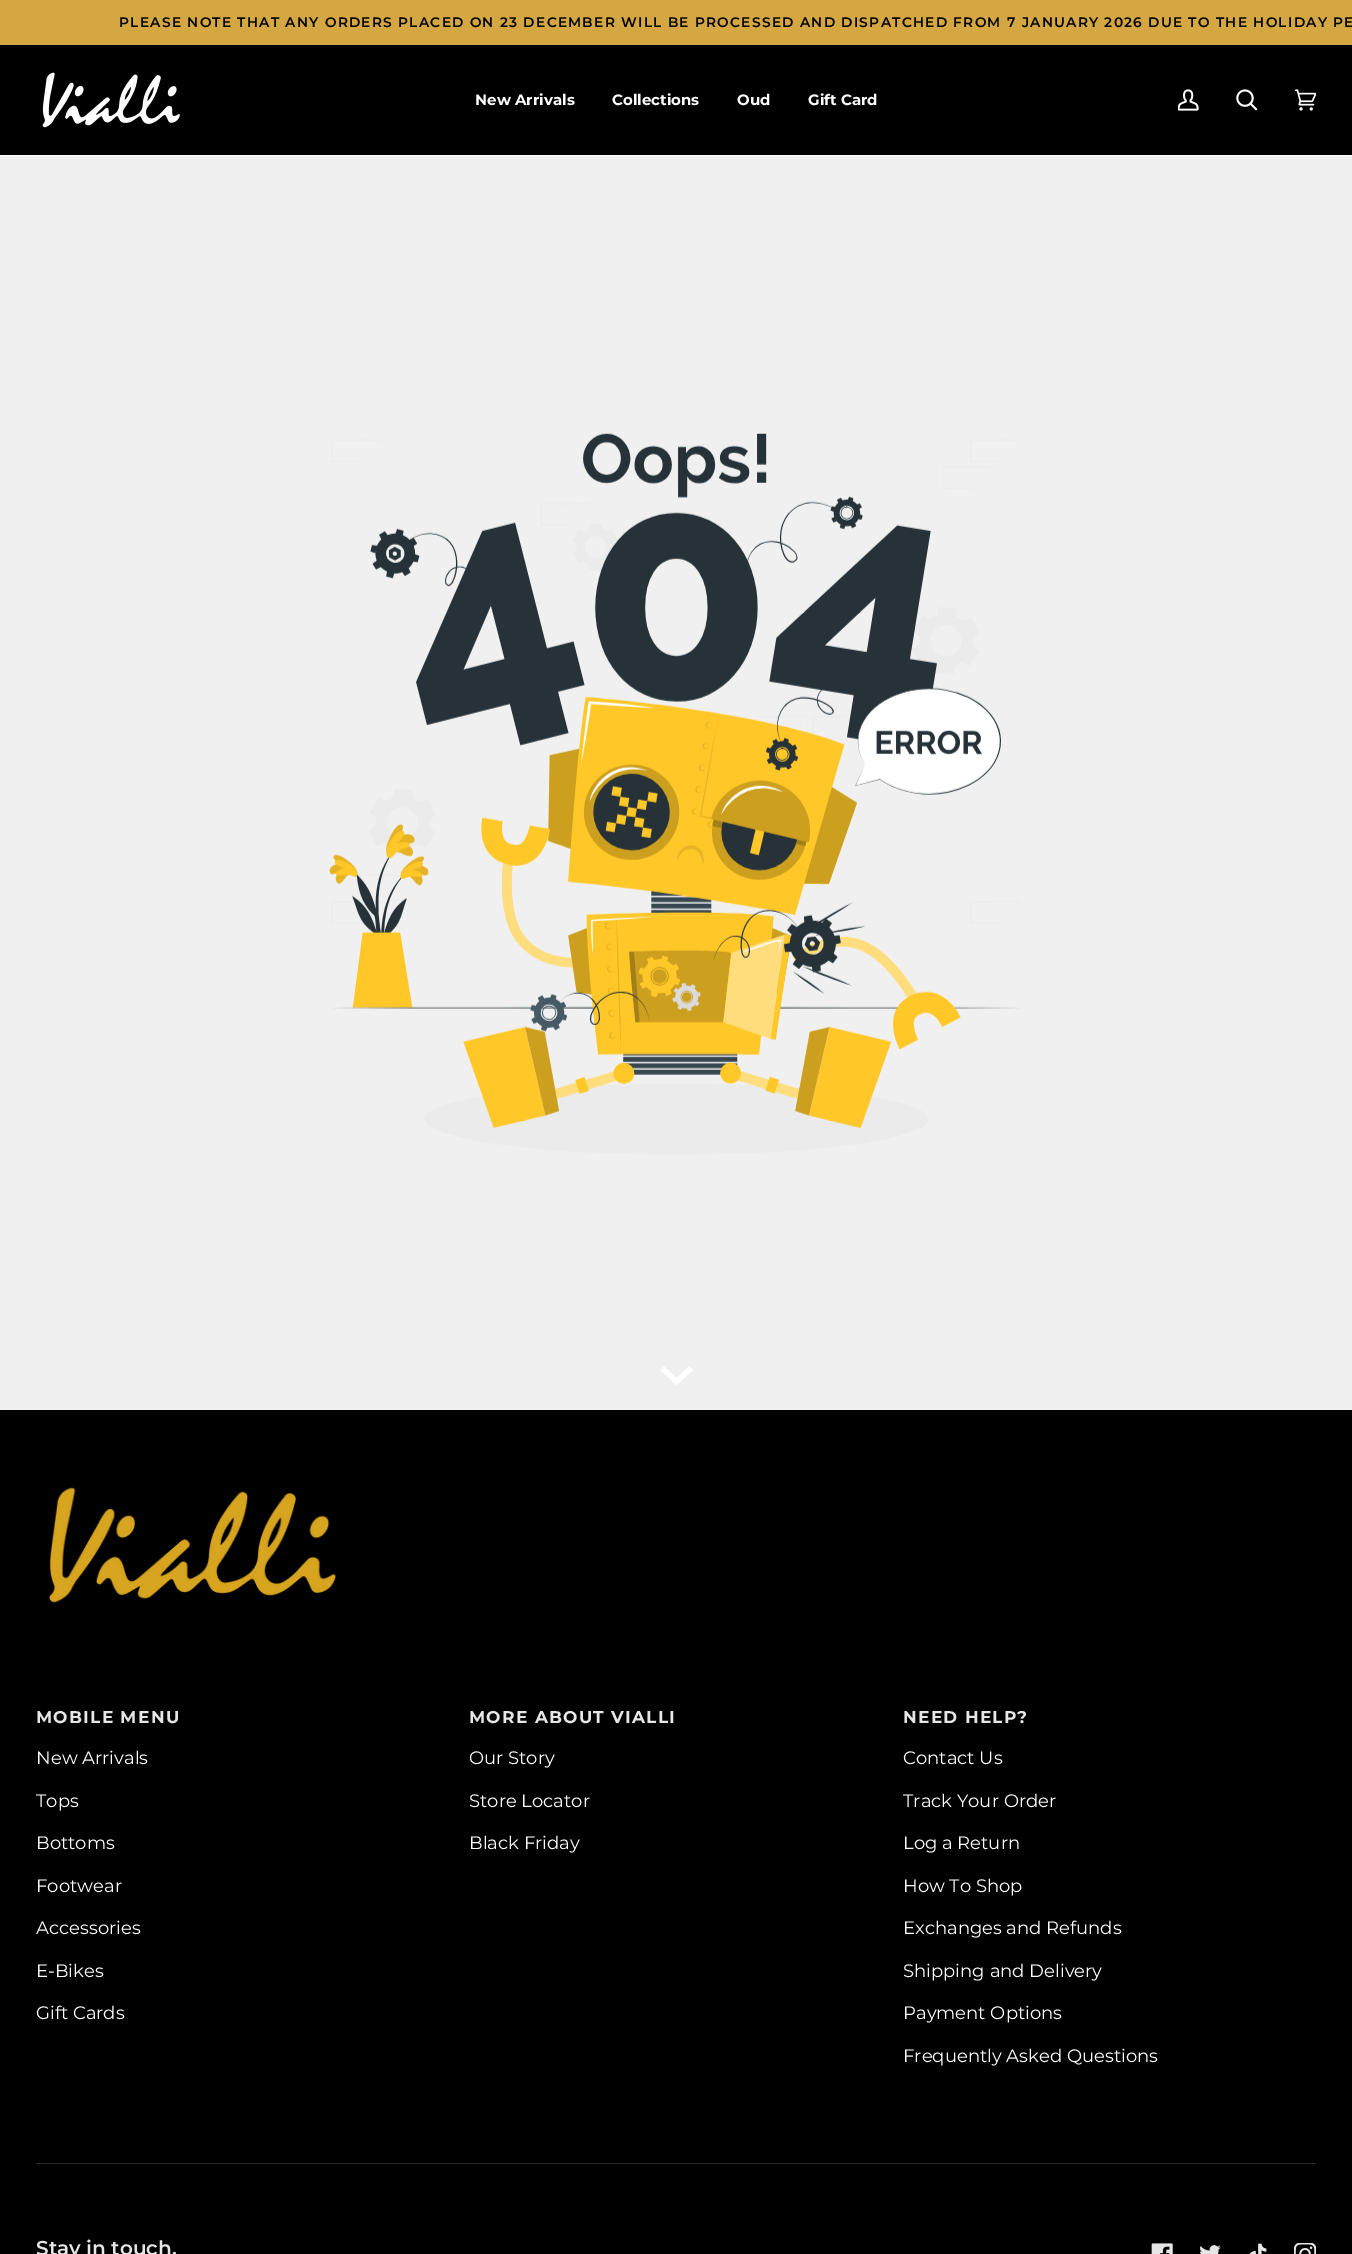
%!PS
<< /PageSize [1352 2254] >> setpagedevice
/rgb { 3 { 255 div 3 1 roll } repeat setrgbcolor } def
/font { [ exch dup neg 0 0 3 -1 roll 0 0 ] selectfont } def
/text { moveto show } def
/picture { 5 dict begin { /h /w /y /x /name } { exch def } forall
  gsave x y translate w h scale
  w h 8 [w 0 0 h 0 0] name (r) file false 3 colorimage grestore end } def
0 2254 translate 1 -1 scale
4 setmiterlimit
255 255 255 rgb
0 0 1352 2254 rectfill
212 167 66 rgb
0 0 1352 45 rectfill
0 0 0 rgb
0 45 1352 110 rectfill
(img_01.rgb) 42 72 138 56 picture
(img_02.rgb) 1178 89 21 22 picture
(img_03.rgb) 1236 89 22 22 picture
(img_04.rgb) 1295 89 21 22 picture
240 240 240 rgb
0 156 1352 1254 rectfill
(img_05.rgb) 329 433 692 722 picture
255 255 255 rgb
660 1370 moveto 4 -3.5 rlineto 12.5 11.5 rlineto 12.5 -11.5 rlineto 4 3.5 rlineto -16.5 15 rlineto closepath eofill
0 0 0 rgb
0 1410 1352 844 rectfill
(img_06.rgb) 49 1487 287 116 picture
38 38 38 rgb
36 2163 1280 1 rectfill
(img_07.rgb) 1151 2243 22 11 picture
(img_08.rgb) 1200 2245 21 9 picture
(img_09.rgb) 1249 2243 18 11 picture
(img_10.rgb) 1294 2243 22 11 picture
/Montserrat-SemiBold 13.75 font
0 0 0 rgb
119 27 moveto 1.25 0 (PLEASE NOTE THAT ANY ORDERS PLACED ON 23 DECEMBER WILL BE PROCESSED AND DISPATCHED FROM 7 JANUARY 2026 DUE TO THE HOLIDAY PE) ashow
/Montserrat-Bold 15 font
255 255 255 rgb
(New Arrivals) 475 105 text
(Collections) 612 105 text
(Oud) 737 105 text
(Gift Card) 808 105 text
/Montserrat-Bold 17 font
230 230 230 rgb
36 1723 moveto 1.25 0 (MOBILE MENU) ashow
/Montserrat-Regular 18 font
255 255 255 rgb
(New Arrivals) 36 1764 text
(Tops) 36 1807 text
(Bottoms) 36 1849 text
(Footwear) 36 1892 text
(Accessories) 36 1934 text
(E-Bikes) 36 1977 text
(Gift Cards) 36 2019 text
/Montserrat-Bold 17 font
230 230 230 rgb
469 1723 moveto 1.25 0 (MORE ABOUT VIALLI) ashow
/Montserrat-Regular 18 font
255 255 255 rgb
(Our Story) 469 1764 text
(Store Locator) 469 1807 text
(Black Friday) 469 1849 text
/Montserrat-Bold 17 font
230 230 230 rgb
903 1723 moveto 1.25 0 (NEED HELP?) ashow
/Montserrat-Regular 18 font
255 255 255 rgb
(Contact Us) 903 1764 text
(Track Your Order) 903 1807 text
(Log a Return) 903 1849 text
(How To Shop) 903 1892 text
(Exchanges and Refunds) 903 1934 text
(Shipping and Delivery) 903 1977 text
(Payment Options) 903 2019 text
(Frequently Asked Questions) 903 2062 text
/Montserrat-SemiBold 20 font
230 230 230 rgb
(Stay in touch.) 36 2255 text
showpage
